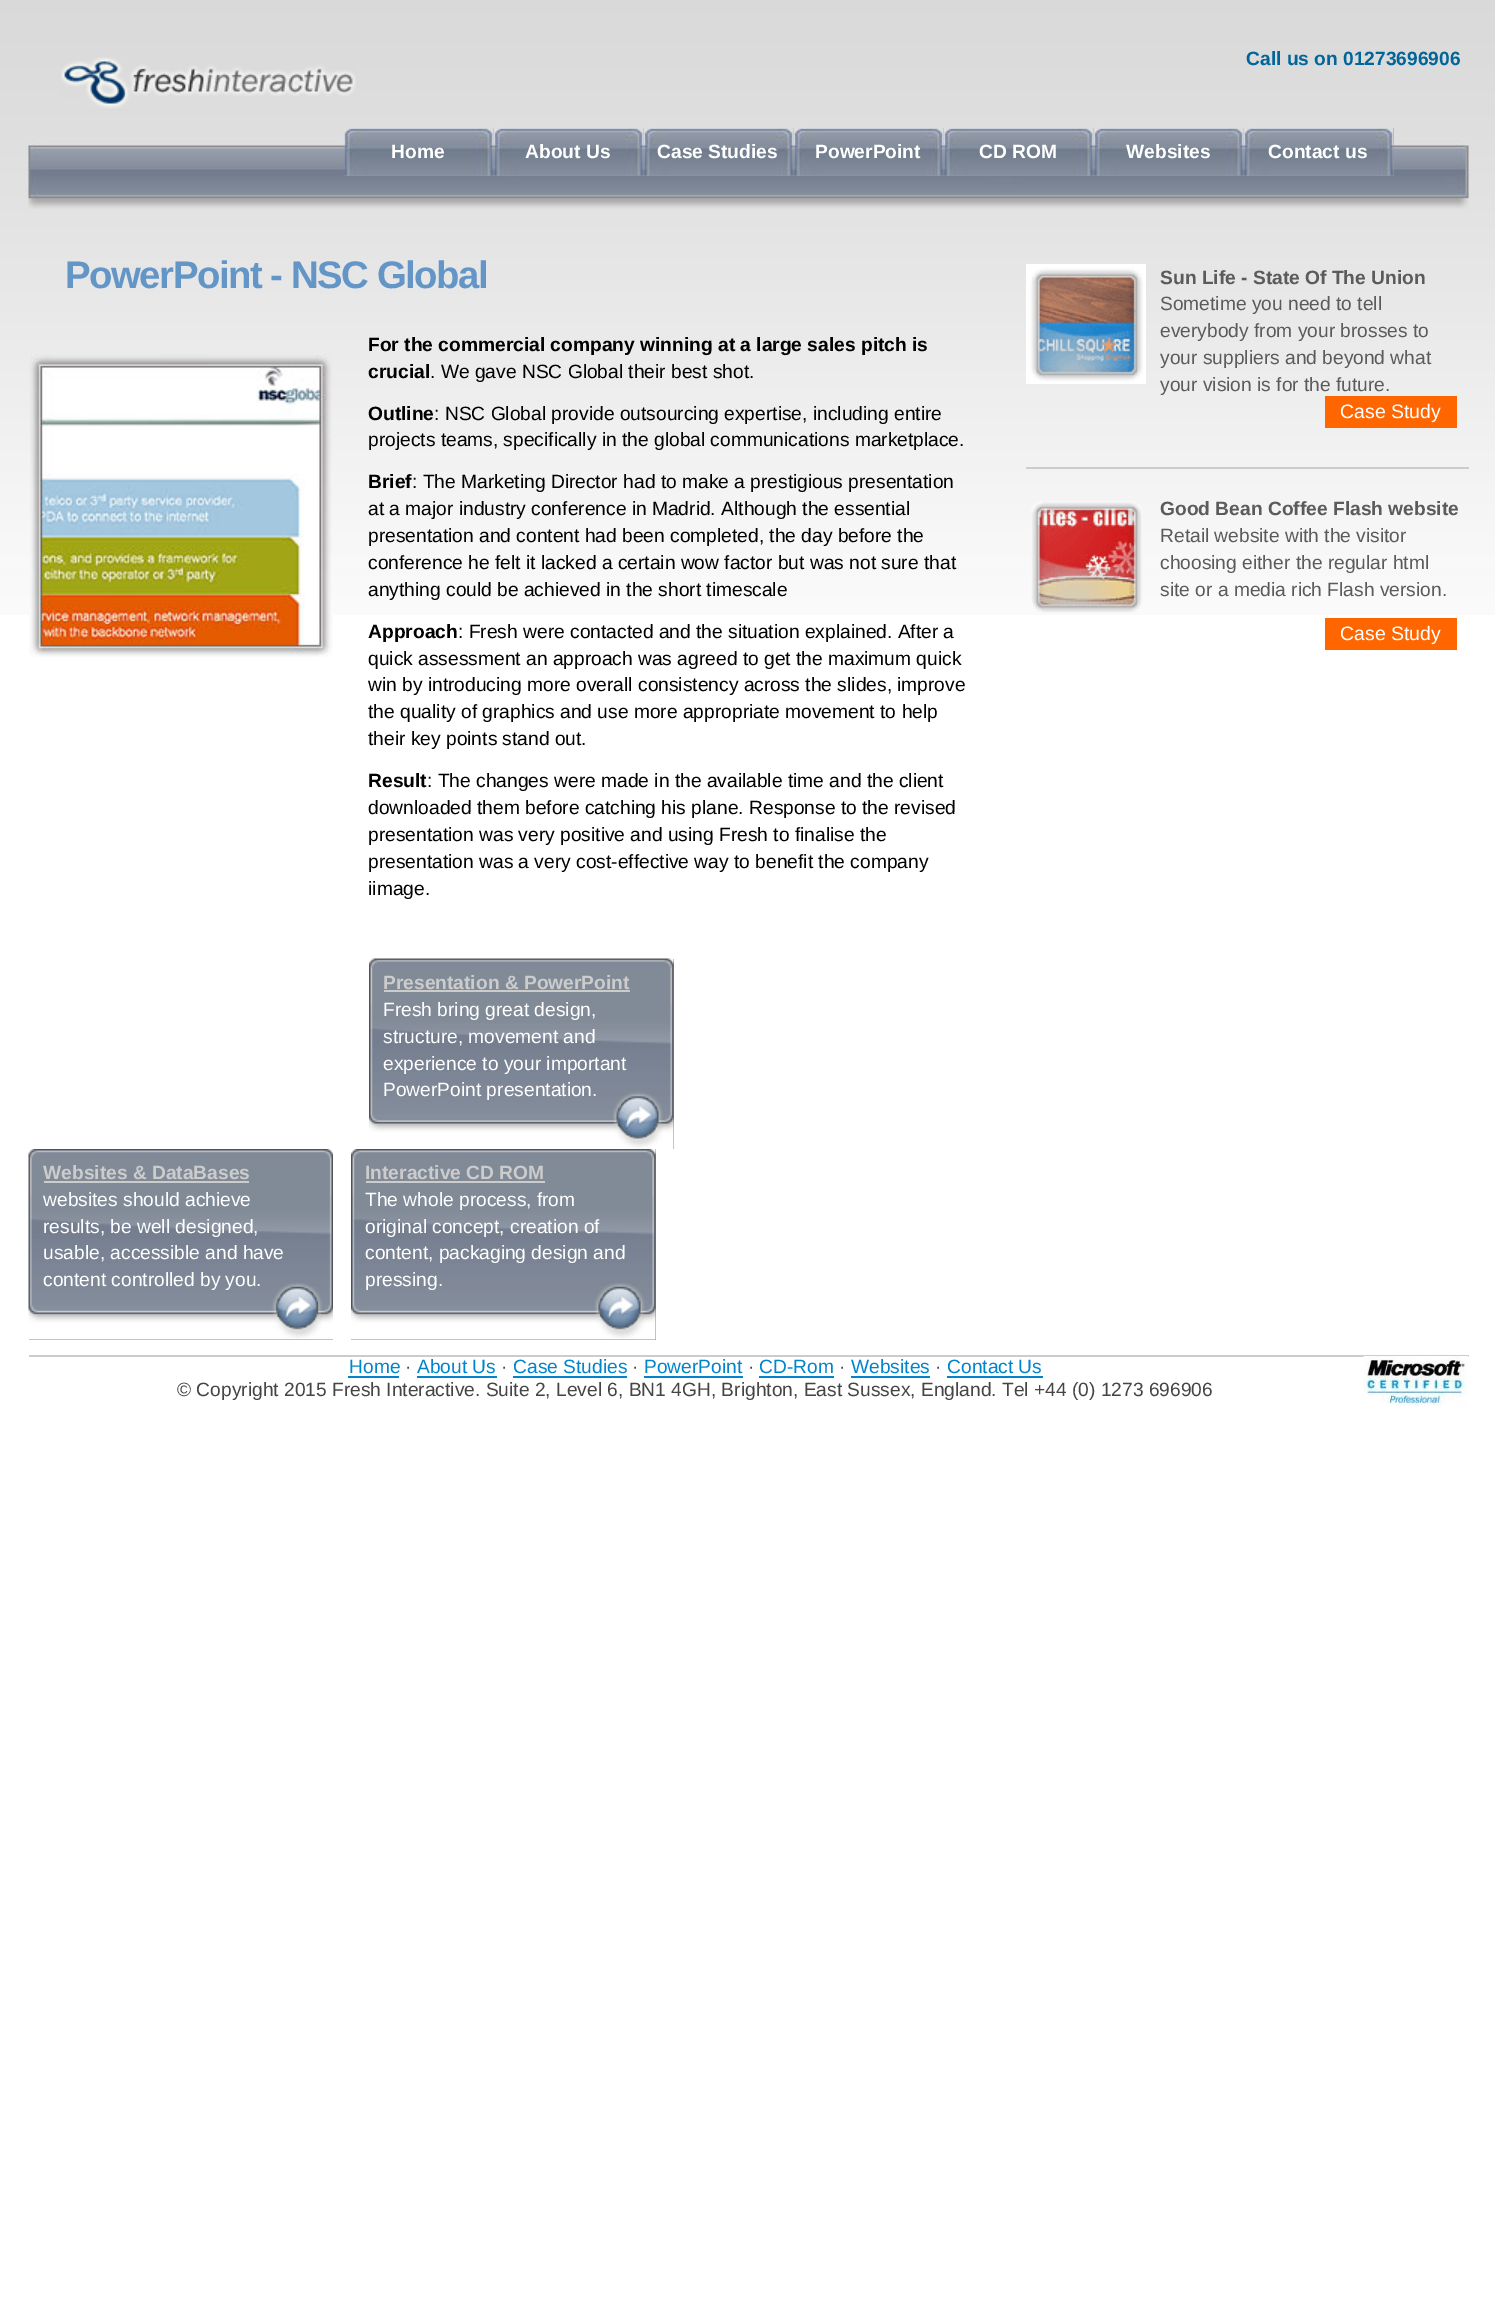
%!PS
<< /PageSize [1495 2322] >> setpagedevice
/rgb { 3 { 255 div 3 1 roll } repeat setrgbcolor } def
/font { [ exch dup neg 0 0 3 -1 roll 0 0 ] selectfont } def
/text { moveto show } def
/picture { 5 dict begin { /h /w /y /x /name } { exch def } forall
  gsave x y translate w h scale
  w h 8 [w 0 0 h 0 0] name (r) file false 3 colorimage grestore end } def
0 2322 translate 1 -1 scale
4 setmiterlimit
255 255 255 rgb
0 0 1495 2322 rectfill
(img_01.rgb) 0 0 1495 615 picture
(img_02.rgb) 61 57 295 52 picture
(img_03.rgb) 28 140 1441 69 picture
144 153 162 rgb
344 128 1050 48 rectfill
(img_04.rgb) 343 127 151 49 picture
(img_05.rgb) 493 127 151 49 picture
(img_06.rgb) 643 127 151 49 picture
(img_07.rgb) 793 127 151 49 picture
(img_07.rgb) 943 127 151 49 picture
(img_08.rgb) 1093 127 151 49 picture
(img_07.rgb) 1243 127 151 49 picture
(img_09.rgb) 29 354 304 303 picture
129 138 151 rgb
369 959 305 9 rectfill
(img_10.rgb) 369 958 305 10 picture
673 968 1 181 rectfill
(img_11.rgb) 369 967 305 182 picture
204 204 204 rgb
384 990 246 2 rectfill
(img_12.rgb) 28 1149 305 9 picture
129 138 151 rgb
29 1339 304 1 rectfill
(img_13.rgb) 28 1158 305 182 picture
204 204 204 rgb
44 1181 205 2 rectfill
129 138 151 rgb
655 1149 1 9 rectfill
(img_14.rgb) 351 1149 305 9 picture
351 1158 305 182 rectfill
(img_15.rgb) 351 1158 305 182 picture
204 204 204 rgb
366 1181 179 2 rectfill
(img_16.rgb) 1026 264 120 120 picture
255 102 0 rgb
1325 396 132 32 rectfill
204 204 204 rgb
1026 467 443 2 rectfill
(img_17.rgb) 1031 501 112 112 picture
255 102 0 rgb
1325 618 132 32 rectfill
204 204 204 rgb
29 1355 1440 2 rectfill
0 132 204 rgb
348 1376 51 2 rectfill
417 1376 80 2 rectfill
513 1376 114 2 rectfill
644 1376 99 2 rectfill
759 1376 75 2 rectfill
851 1376 79 2 rectfill
947 1376 96 2 rectfill
(img_18.rgb) 1363 1356 106 51 picture
/LiberationSans-Bold 19.2 font
0 102 153 rgb
(Call us on 01273696906) 1246 65 text
255 255 255 rgb
(Home) 391 158 text
(About Us) 525 158 text
(Case Studies) 657 158 text
(PowerPoint) 815 158 text
(CD ROM) 979 158 text
(Websites) 1126 158 text
(Contact us) 1268 158 text
/LiberationSans-Bold 38.4 font
99 149 199 rgb
65 288 moveto -1.5 0 (PowerPoint - NSC Global) ashow
/LiberationSans-Bold 19.2 font
0 0 0 rgb
(For the commercial company winning at a large sales pitch is) 368 351 text
(crucial) 368 378 text
/LiberationSans-Regular 19.2 font
(. We gave NSC Global their best shot.) 430 378 text
/LiberationSans-Bold 19.2 font
(Outline) 368 420 text
/LiberationSans-Regular 19.2 font
(: NSC Global provide outsourcing expertise, including entire) 434 420 text
(projects teams, specifically in the global communications marketplace.) 368 446 text
/LiberationSans-Bold 19.2 font
(Brief) 368 488 text
/LiberationSans-Regular 19.2 font
(: The Marketing Director had to make a prestigious presentation) 412 488 text
(at a major industry conference in Madrid. Although the essential) 368 515 text
(presentation and content had been completed, the day before the) 368 542 text
(conference he felt it lacked a certain wow factor but was not sure that) 368 569 text
(anything could be achieved in the short timescale) 368 596 text
/LiberationSans-Bold 19.2 font
(Approach) 368 638 text
/LiberationSans-Regular 19.2 font
(: Fresh were contacted and the situation explained. After a) 458 638 text
(quick assessment an approach was agreed to get the maximum quick) 368 665 text
(win by introducing more overall consistency across the slides, improve) 368 691 text
(the quality of graphics and use more appropriate movement to help) 368 718 text
(their key points stand out.) 368 745 text
/LiberationSans-Bold 19.2 font
(Result) 368 787 text
/LiberationSans-Regular 19.2 font
(: The changes were made in the available time and the client) 427 787 text
(downloaded them before catching his plane. Response to the revised) 368 814 text
(presentation was very positive and using Fresh to finalise the) 368 841 text
(presentation was a very cost-effective way to benefit the company) 368 868 text
(iimage.) 368 895 text
/LiberationSans-Bold 19.2 font
204 204 204 rgb
(Presentation & PowerPoint) 383 989 text
/LiberationSans-Regular 19.2 font
255 255 255 rgb
(Fresh bring great design,) 383 1016 text
(structure, movement and) 383 1043 text
(experience to your important) 383 1070 text
(PowerPoint presentation.) 383 1096 text
/LiberationSans-Bold 19.2 font
204 204 204 rgb
(Websites & DataBases) 43 1179 text
/LiberationSans-Regular 19.2 font
255 255 255 rgb
(websites should achieve) 43 1206 text
(results, be well designed,) 43 1233 text
(usable, accessible and have) 43 1259 text
(content controlled by you.) 43 1286 text
/LiberationSans-Bold 19.2 font
204 204 204 rgb
(Interactive CD ROM) 365 1179 text
/LiberationSans-Regular 19.2 font
255 255 255 rgb
(The whole process, from) 365 1206 text
(original concept, creation of) 365 1233 text
(content, packaging design and) 365 1259 text
(pressing.) 365 1286 text
/LiberationSans-Bold 19.2 font
91 91 91 rgb
(Sun Life - State Of The Union) 1160 284 text
/LiberationSans-Regular 19.2 font
(Sometime you need to tell) 1160 310 text
(everybody from your brosses to) 1160 337 text
(your suppliers and beyond what) 1160 364 text
(your vision is for the future.) 1160 391 text
/LiberationSans-Regular 19.5 font
255 255 255 rgb
(Case Study) 1340 418 text
/LiberationSans-Bold 19.2 font
91 91 91 rgb
(Good Bean Coffee Flash website) 1160 515 text
/LiberationSans-Regular 19.2 font
(Retail website with the visitor) 1160 542 text
(choosing either the regular html) 1160 569 text
(site or a media rich Flash version.) 1160 596 text
/LiberationSans-Regular 19.5 font
255 255 255 rgb
(Case Study) 1340 640 text
/LiberationSans-Regular 19.2 font
0 132 204 rgb
(Home) 349 1373 text
69 69 69 rgb
(·) 405 1373 text
0 132 204 rgb
(About Us) 417 1373 text
69 69 69 rgb
(·) 501 1373 text
0 132 204 rgb
(Case Studies) 513 1373 text
69 69 69 rgb
(·) 632 1373 text
0 132 204 rgb
(PowerPoint) 644 1373 text
69 69 69 rgb
(·) 748 1373 text
0 132 204 rgb
(CD-Rom) 759 1373 text
69 69 69 rgb
(·) 839 1373 text
0 132 204 rgb
(Websites) 851 1373 text
69 69 69 rgb
(·) 935 1373 text
0 132 204 rgb
(Contact Us) 947 1373 text
69 69 69 rgb
(© Copyright 2015 Fresh Interactive. Suite 2, Level 6, BN1 4GH, Brighton, East Sussex, England. Tel +44 \(0\) 1273 696906) 177 1396 text
showpage
